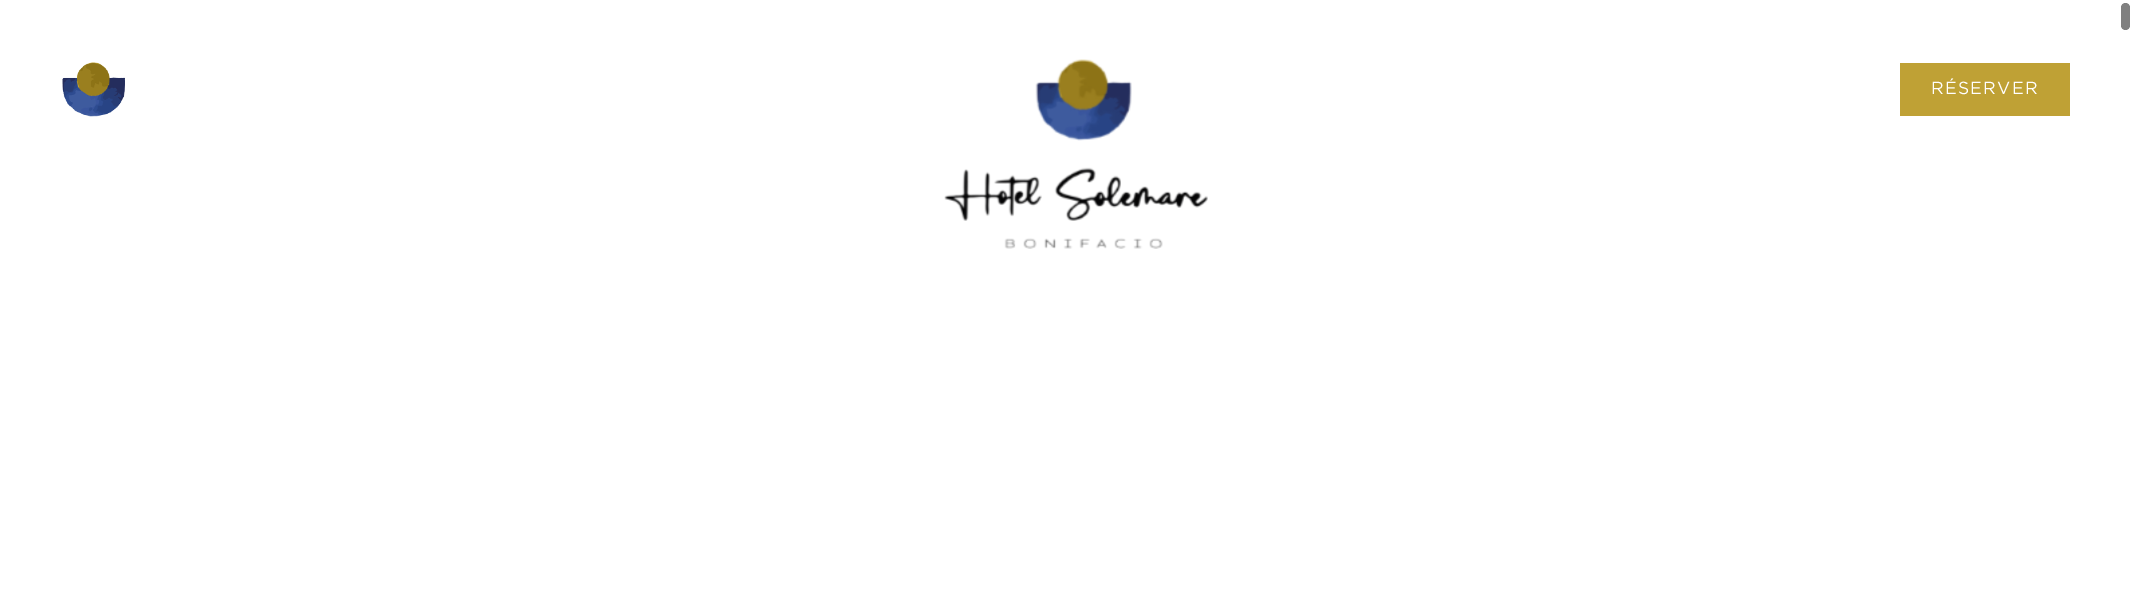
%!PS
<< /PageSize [2132 596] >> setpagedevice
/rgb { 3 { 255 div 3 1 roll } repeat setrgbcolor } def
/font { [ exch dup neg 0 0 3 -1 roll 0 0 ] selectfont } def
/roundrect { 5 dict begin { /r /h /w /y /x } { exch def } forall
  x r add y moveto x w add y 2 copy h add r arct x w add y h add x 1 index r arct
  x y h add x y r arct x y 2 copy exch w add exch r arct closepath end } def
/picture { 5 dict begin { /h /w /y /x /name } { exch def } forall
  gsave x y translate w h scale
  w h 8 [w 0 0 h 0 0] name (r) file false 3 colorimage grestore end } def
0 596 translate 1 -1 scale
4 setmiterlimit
255 255 255 rgb
0 0 2132 596 rectfill
128 128 128 rgb
2121 3 9 27 4.5 roundrect fill
(img_01.rgb) 62 62 63 55 picture
(img_02.rgb) 944 59 264 190 picture
191 161 53 rgb
1900 63 170 53 rectfill
/Gotham-Regular 17.5 font
255 255 255 rgb
1931 94 moveto 1.25 0 (RÉSERVER) ashow
showpage
